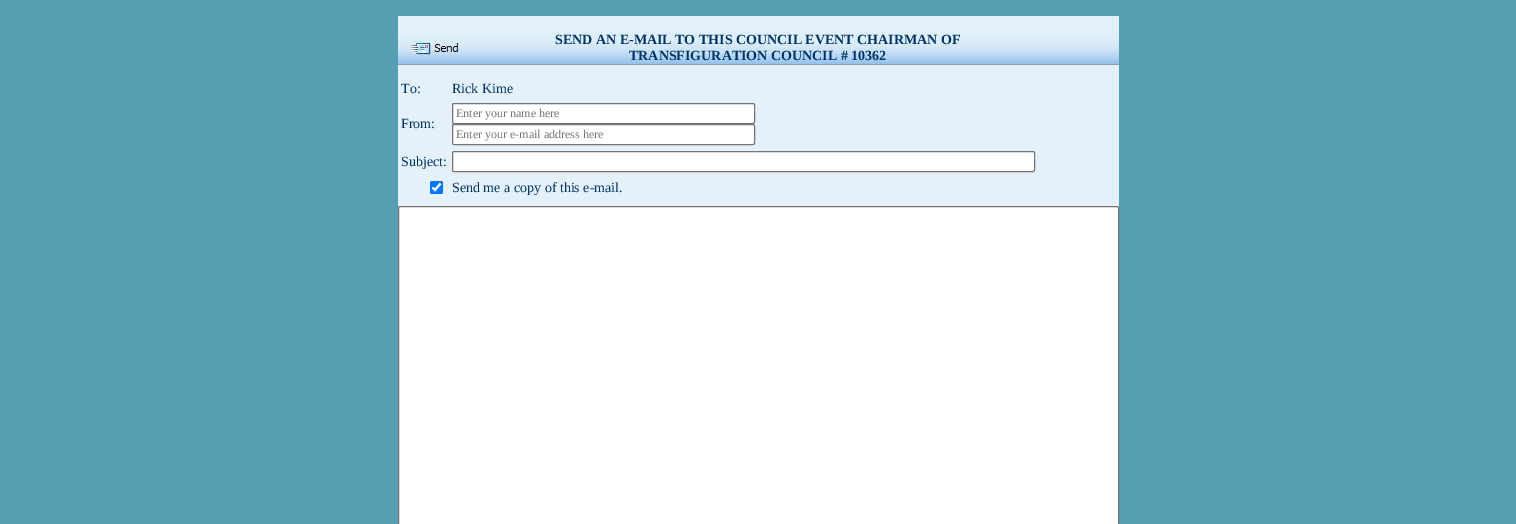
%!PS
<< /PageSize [1516 524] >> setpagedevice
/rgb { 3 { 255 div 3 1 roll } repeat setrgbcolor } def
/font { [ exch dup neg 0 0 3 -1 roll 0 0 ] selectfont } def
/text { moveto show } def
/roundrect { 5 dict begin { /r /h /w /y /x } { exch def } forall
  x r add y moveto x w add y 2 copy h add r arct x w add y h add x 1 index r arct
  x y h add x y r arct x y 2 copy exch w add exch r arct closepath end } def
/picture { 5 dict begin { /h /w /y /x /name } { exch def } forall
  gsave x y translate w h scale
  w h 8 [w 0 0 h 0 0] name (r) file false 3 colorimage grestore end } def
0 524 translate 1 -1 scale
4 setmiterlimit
84 160 178 rgb
0 0 1516 524 rectfill
228 241 250 rgb
398 16 721 192 rectfill
(img_01.rgb) 398 32 721 46 picture
(img_02.rgb) 410 41 50 15 picture
255 255 255 rgb
452.5 103.5 302 20 1.5 roundrect gsave fill grestore
118 118 118 rgb
stroke
255 255 255 rgb
452.5 124.5 302 20 1.5 roundrect gsave fill grestore
118 118 118 rgb
stroke
255 255 255 rgb
452.5 151.5 582 20 1.5 roundrect gsave fill grestore
118 118 118 rgb
stroke
0 117 255 rgb
430 181 13 13 2 roundrect fill
255 255 255 rgb
2.1 setlinewidth
432.5 187.5 moveto 2.5 2.5 rlineto 5.5 -6.5 rlineto stroke
398.5 206.5 720 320 1.5 roundrect gsave fill grestore
118 118 118 rgb
1 setlinewidth
stroke
/LiberationSerif-Bold 14 font
0 52 102 rgb
(SEND AN E-MAIL TO THIS COUNCIL EVENT CHAIRMAN OF) 555 44 text
(TRANSFIGURATION COUNCIL # 10362) 629 60 text
/LiberationSerif-Regular 14 font
(To:) 401 93 text
(Rick Kime) 452 93 text
(From:) 401 128 text
/LiberationSerif-Regular 12 font
117 117 117 rgb
(Enter your name here) 456 117 text
(Enter your e-mail address here) 456 138 text
/LiberationSerif-Regular 14 font
0 52 102 rgb
(Subject:) 401 166 text
(Send me a copy of this e-mail.) 452 192 text
showpage
